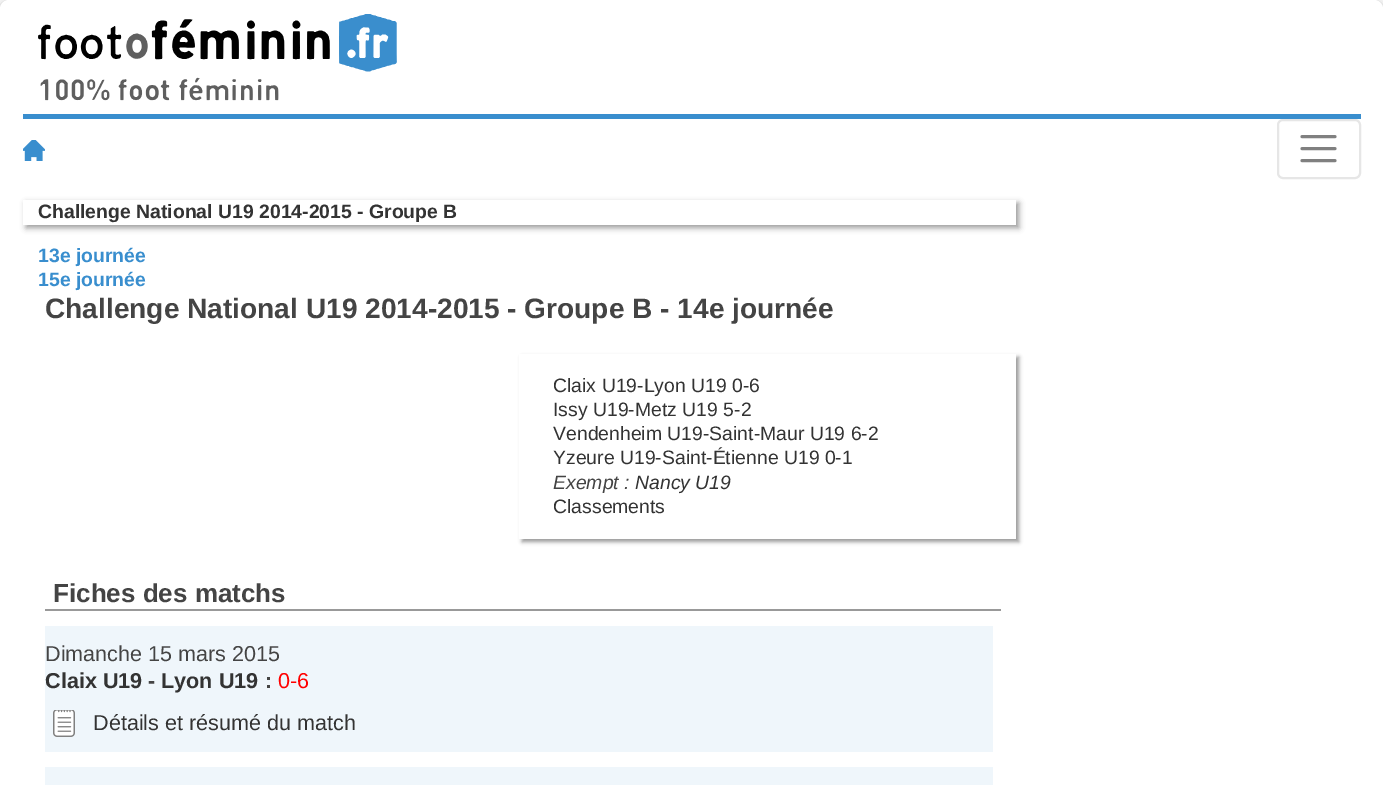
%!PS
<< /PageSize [1383 785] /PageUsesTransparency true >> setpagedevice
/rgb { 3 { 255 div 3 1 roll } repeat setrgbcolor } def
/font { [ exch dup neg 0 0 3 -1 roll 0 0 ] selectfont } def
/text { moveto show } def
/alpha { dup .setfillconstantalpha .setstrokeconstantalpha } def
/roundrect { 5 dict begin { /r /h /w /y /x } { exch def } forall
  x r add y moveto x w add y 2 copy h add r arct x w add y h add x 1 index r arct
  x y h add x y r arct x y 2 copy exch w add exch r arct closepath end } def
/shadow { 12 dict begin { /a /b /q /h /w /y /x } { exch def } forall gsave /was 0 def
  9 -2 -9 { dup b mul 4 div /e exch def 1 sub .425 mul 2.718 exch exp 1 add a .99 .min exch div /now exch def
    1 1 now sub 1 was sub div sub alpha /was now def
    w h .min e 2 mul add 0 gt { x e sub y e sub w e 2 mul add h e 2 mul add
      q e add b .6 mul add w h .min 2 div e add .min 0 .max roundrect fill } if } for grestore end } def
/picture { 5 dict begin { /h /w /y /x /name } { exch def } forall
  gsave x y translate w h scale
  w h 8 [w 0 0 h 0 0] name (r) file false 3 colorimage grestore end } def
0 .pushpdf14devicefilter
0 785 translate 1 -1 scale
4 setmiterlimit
255 255 255 rgb
0 0 1383 785 rectfill
153 153 153 rgb
0 2 1383 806 9 4.5 1 shadow
255 255 255 rgb
0 0 1383 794 9 roundrect fill
(img_01.rgb) 38 14 359 87 picture
57 142 206 rgb
23 114 1338 5 rectfill
(img_02.rgb) 23 140 22 21 picture
230 230 230 rgb
2 setlinewidth
1278 120 82 58 5 roundrect stroke
128 128 128 rgb
3 setlinewidth
1 setlinecap
1302 136.5 moveto 33 0 rlineto 1302 148.5 moveto 33 0 rlineto 1302 160.5 moveto 33 0 rlineto stroke
gsave
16 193 moveto 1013 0 rlineto 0 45 rlineto -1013 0 rlineto closepath 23 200 moveto 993 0 rlineto 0 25 rlineto -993 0 rlineto closepath eoclip newpath
153 153 153 rgb
26 203 993 25 0 3 1 shadow
grestore
gsave
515 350 moveto 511 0 rlineto 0 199 rlineto -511 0 rlineto closepath 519 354 moveto 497 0 rlineto 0 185 rlineto -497 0 rlineto closepath eoclip newpath
153 153 153 rgb
522 357 497 185 0 2 1 shadow
grestore
153 153 153 rgb
45 609 956 2 rectfill
239 246 251 rgb
45 626 948 126 rectfill
(img_03.rgb) 53 710 22 27 picture
45 767 948 18 rectfill
/LiberationSans-Bold 19.4 font
51 51 51 rgb
(Challenge National U19 2014-2015 - Groupe B) 38 218 text
57 142 206 rgb
(13e journée) 38 262 text
(15e journée) 38 286 text
/LiberationSans-Bold 28.1 font
68 68 68 rgb
(Challenge National U19 2014-2015 - Groupe B - 14e journée) 45 318 text
/LiberationSans-Regular 19.4 font
51 51 51 rgb
(Claix U19-Lyon U19 0-6) 553 392 text
(Issy U19-Metz U19 5-2) 553 416 text
(Vendenheim U19-Saint-Maur U19 6-2) 553 440 text
(Yzeure U19-Saint-Étienne U19 0-1) 553 464 text
/LiberationSans-Italic 19.4 font
68 68 68 rgb
(Exempt :) 553 489 text
51 51 51 rgb
(Nancy U19) 635 489 text
/LiberationSans-Regular 19.4 font
(Classements) 553 513 text
/LiberationSans-Bold 26 font
68 68 68 rgb
(Fiches des matchs) 53 602 text
/LiberationSans-Regular 21.6 font
(Dimanche 15 mars 2015) 45 661 text
/LiberationSans-Bold 21.6 font
51 51 51 rgb
(Claix U19) 45 688 text
68 68 68 rgb
(-) 148 688 text
51 51 51 rgb
(Lyon U19) 161 688 text
68 68 68 rgb
(:) 265 688 text
/LiberationSans-Regular 21.6 font
255 0 0 rgb
(0-6) 278 688 text
51 51 51 rgb
(Détails et résumé du match) 93 730 text
.poppdf14devicefilter showpage
